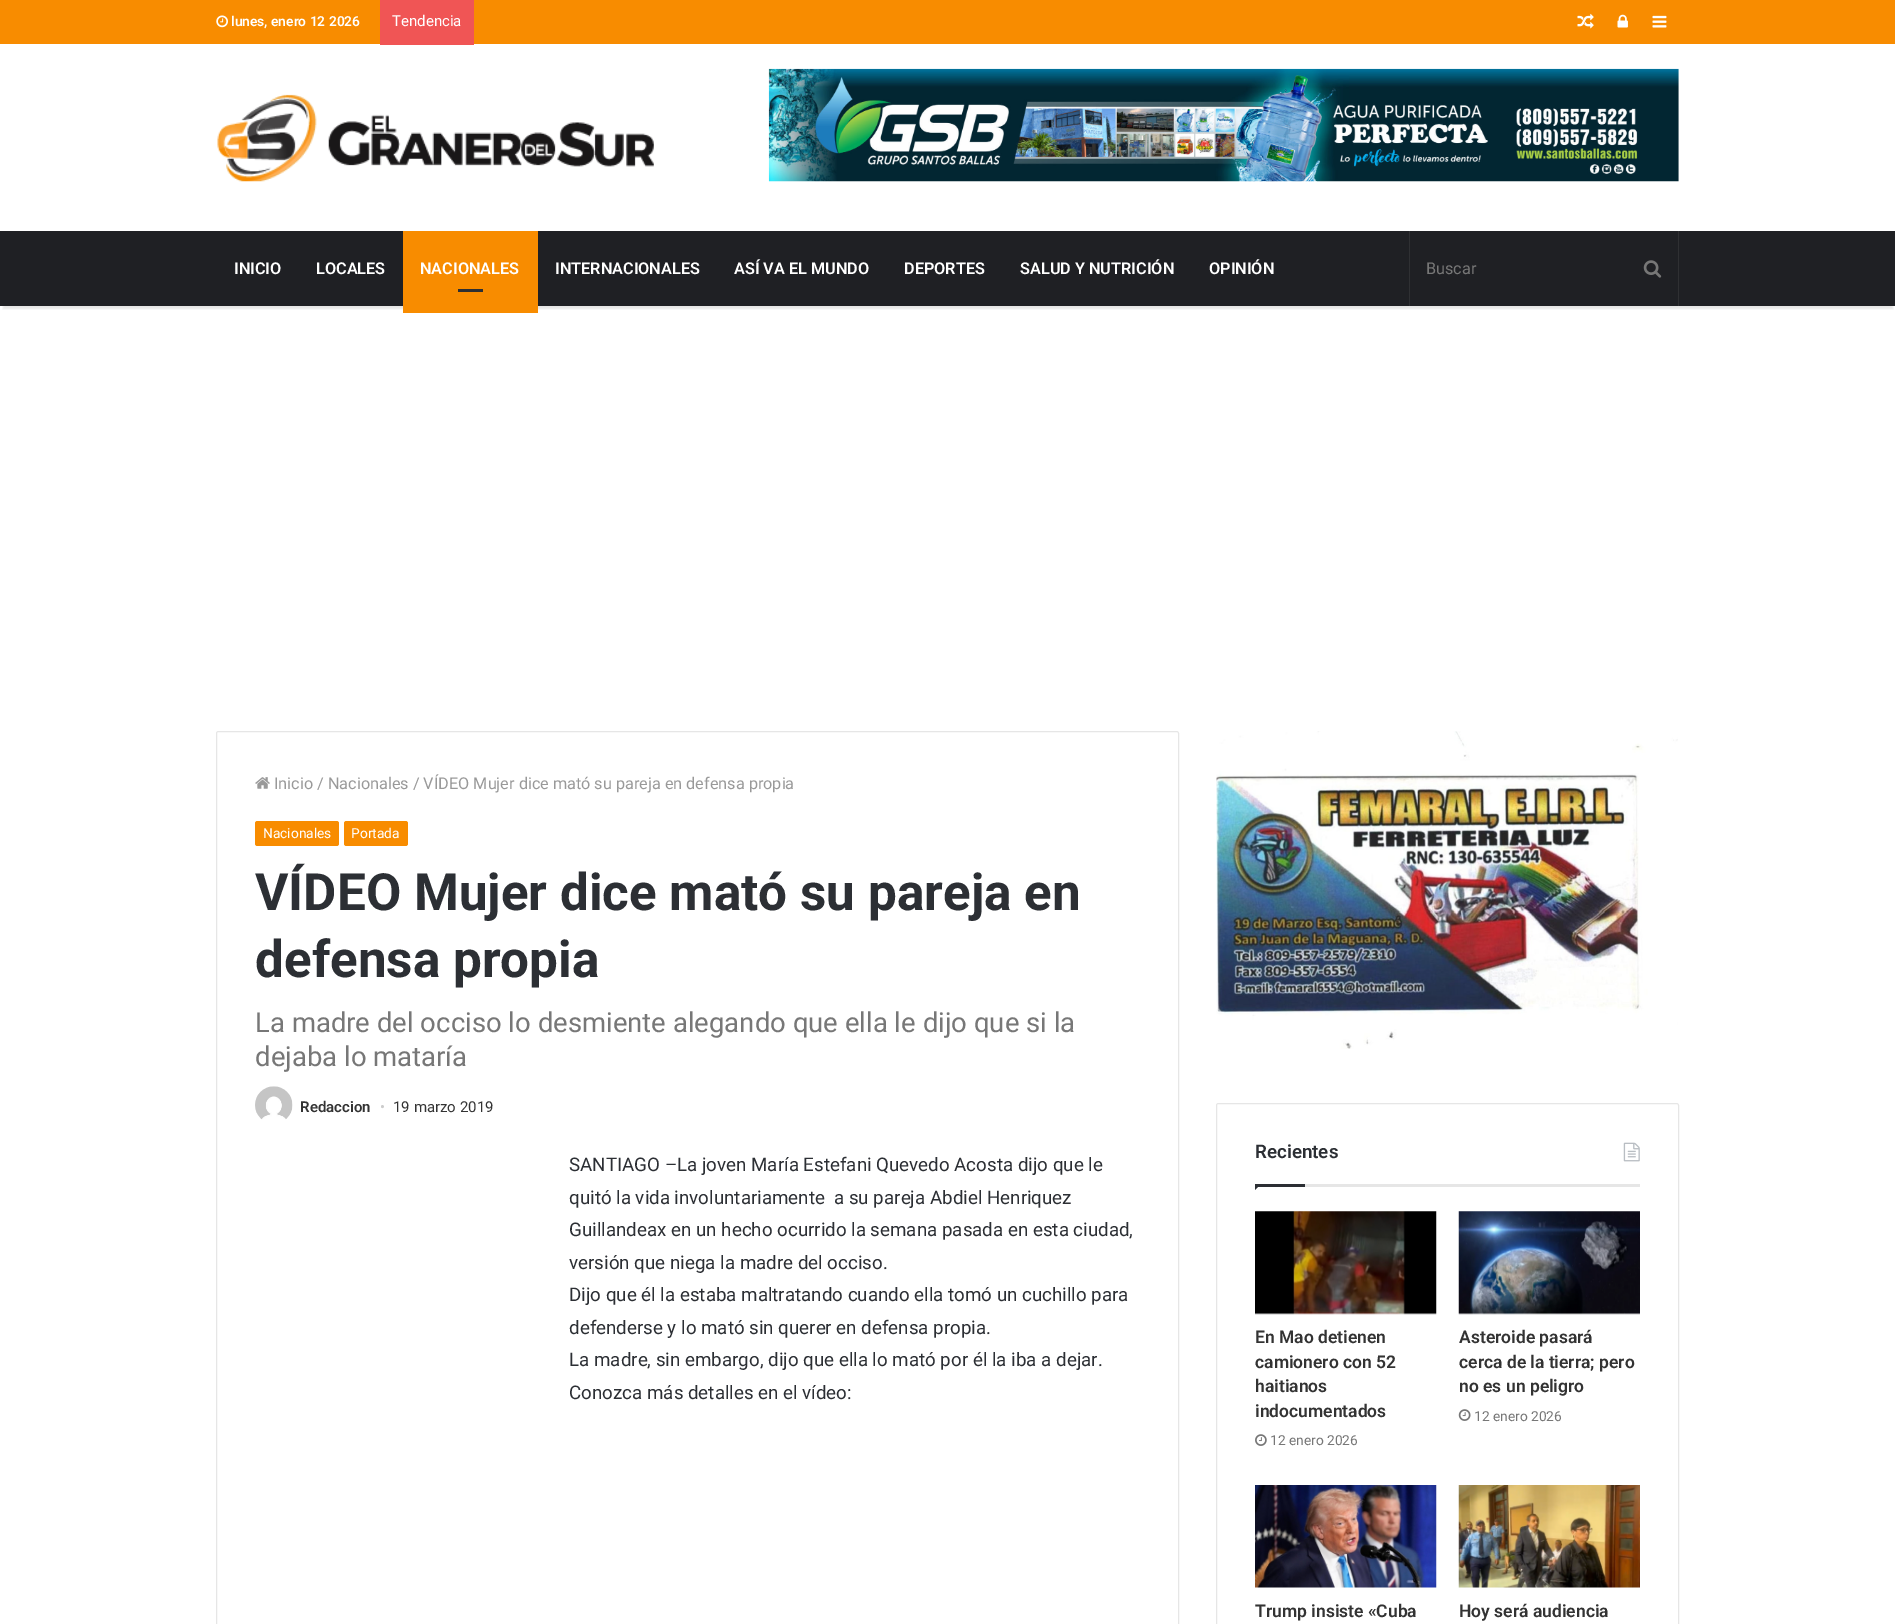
%!PS
<< /PageSize [1895 1624] /PageUsesTransparency true >> setpagedevice
/rgb { 3 { 255 div 3 1 roll } repeat setrgbcolor } def
/font { [ exch dup neg 0 0 3 -1 roll 0 0 ] selectfont } def
/text { moveto show } def
/alpha { dup .setfillconstantalpha .setstrokeconstantalpha } def
/roundrect { 5 dict begin { /r /h /w /y /x } { exch def } forall
  x r add y moveto x w add y 2 copy h add r arct x w add y h add x 1 index r arct
  x y h add x y r arct x y 2 copy exch w add exch r arct closepath end } def
/shadow { 12 dict begin { /a /b /q /h /w /y /x } { exch def } forall gsave /was 0 def
  9 -2 -9 { dup b mul 4 div /e exch def 1 sub .425 mul 2.718 exch exp 1 add a .99 .min exch div /now exch def
    1 1 now sub 1 was sub div sub alpha /was now def
    w h .min e 2 mul add 0 gt { x e sub y e sub w e 2 mul add h e 2 mul add
      q e add b .6 mul add w h .min 2 div e add .min 0 .max roundrect fill } if } for grestore end } def
/picture { 5 dict begin { /h /w /y /x /name } { exch def } forall
  gsave x y translate w h scale
  w h 8 [w 0 0 h 0 0] name (r) file false 3 colorimage grestore end } def
0 .pushpdf14devicefilter
0 1624 translate 1 -1 scale
4 setmiterlimit
255 255 255 rgb
0 0 1895 1624 rectfill
gsave
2 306 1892 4 rectclip
0 0 0 rgb
3 8 1890 301 0 1 0.1 shadow
grestore
248 140 0 rgb
0 0 1895 44 rectfill
(img_01.rgb) 216 15 12 13 picture
240 85 85 rgb
380 0 94 45 rectfill
(img_02.rgb) 1577 13 17 16 picture
(img_03.rgb) 1617 14 11 14 picture
(img_04.rgb) 1652 15 15 13 picture
(img_05.rgb) 217 94 437 88 picture
(img_06.rgb) 768 68 911 114 picture
31 32 36 rgb
0 231 1895 75 rectfill
248 140 0 rgb
403 231 135 82 rectfill
44 47 52 rgb
458 289 25 3 rectfill
47 48 51 rgb
1678 231 1 75 rectfill
1409 231 1 75 rectfill
(img_07.rgb) 1643 260 19 18 picture
230 230 230 rgb
216.5 731.5 962 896 2 roundrect stroke
(img_08.rgb) 255 777 15 12 picture
248 140 0 rgb
255 821 84 25 2.5 roundrect fill
344 821 64 25 2.5 roundrect fill
(img_09.rgb) 255 1086 38 34 picture
(img_10.rgb) 1216 731 462 318 picture
230 230 230 rgb
1216.5 1103.5 462 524 2 roundrect stroke
1305 1184 335 3 rectfill
(img_11.rgb) 1623 1142 17 20 picture
44 47 52 rgb
1255 1184 moveto 6 0 rlineto -6 6 rlineto closepath fill
1255 1184 50 3 rectfill
(img_12.rgb) 1255 1211 182 104 picture
(img_13.rgb) 1255 1434 12 12 picture
(img_14.rgb) 1458 1211 182 104 picture
(img_15.rgb) 1458 1409 13 12 picture
(img_16.rgb) 1255 1485 182 103 picture
(img_17.rgb) 1458 1485 182 103 picture
/Roboto-SemiBold 13.75 font
255 255 255 rgb
(lunes, enero 12 2026) 231 26 text
/Roboto-Regular 15 font
(Tendencia) 392 26 text
/Roboto-SemiBold 16.25 font
(INICIO) 234 274 text
(LOCALES) 316 274 text
(NACIONALES) 420 274 text
(INTERNACIONALES) 555 274 text
(ASÍ VA EL MUNDO) 734 274 text
(DEPORTES) 904 274 text
(SALUD Y NUTRICIÓN) 1020 274 text
(OPINIÓN) 1209 274 text
/Roboto-Regular 16.25 font
119 119 119 rgb
(Buscar) 1426 274 text
153 153 153 rgb
(Inicio / Nacionales / VÍDEO Mujer dice mató su pareja en defensa propia) 274 789 text
/Roboto-Regular 13.75 font
255 255 255 rgb
(Nacionales) 263 838 text
(Portada) 351 838 text
/Roboto-Bold 51.25 font
44 47 52 rgb
(VÍDEO Mujer dice mató su pareja en) 255 910 text
(defensa propia) 255 977 text
/Roboto-Regular 27.5 font
119 119 119 rgb
(La madre del occiso lo desmiente alegando que ella le dijo que si la) 255 1032 text
(dejaba lo mataría) 255 1066 text
/Roboto-SemiBold 15 font
51 51 51 rgb
(Redaccion) 300 1112 text
/Roboto-Regular 15 font
204 204 204 rgb
(•) 380 1112 text
51 51 51 rgb
(19 marzo 2019) 393 1112 text
/Roboto-Regular 18.75 font
44 47 52 rgb
(SANTIAGO –La joven María Estefani Quevedo Acosta dijo que le) 569 1171 text
(quitó la vida involuntariamente  a su pareja Abdiel Henriquez) 569 1204 text
(Guillandeax en un hecho ocurrido la semana pasada en esta ciudad,) 569 1236 text
(versión que niega la madre del occiso.) 569 1269 text
(Dijo que él la estaba maltratando cuando ella tomó un cuchillo para) 569 1301 text
(defenderse y lo mató sin querer en defensa propia.) 569 1334 text
(La madre, sin embargo, dijo que ella lo mató por él la iba a dejar.) 569 1366 text
(Conozca más detalles en el vídeo:) 569 1399 text
/Roboto-SemiBold 18.75 font
(Recientes) 1255 1158 text
/Roboto-SemiBold 17.5 font
51 51 51 rgb
(En Mao detienen) 1255 1343 text
(camionero con 52) 1255 1368 text
(haitianos) 1255 1392 text
(indocumentados) 1255 1417 text
/Roboto-Regular 13.75 font
119 119 119 rgb
(12 enero 2026) 1270 1445 text
/Roboto-SemiBold 17.5 font
51 51 51 rgb
(Asteroide pasará) 1459 1343 text
(cerca de la tierra; pero) 1459 1368 text
(no es un peligro) 1459 1392 text
/Roboto-Regular 13.75 font
119 119 119 rgb
(12 enero 2026) 1474 1421 text
/Roboto-SemiBold 17.5 font
51 51 51 rgb
(Trump insiste «Cuba) 1255 1617 text
(Hoy será audiencia) 1459 1617 text
.poppdf14devicefilter showpage
